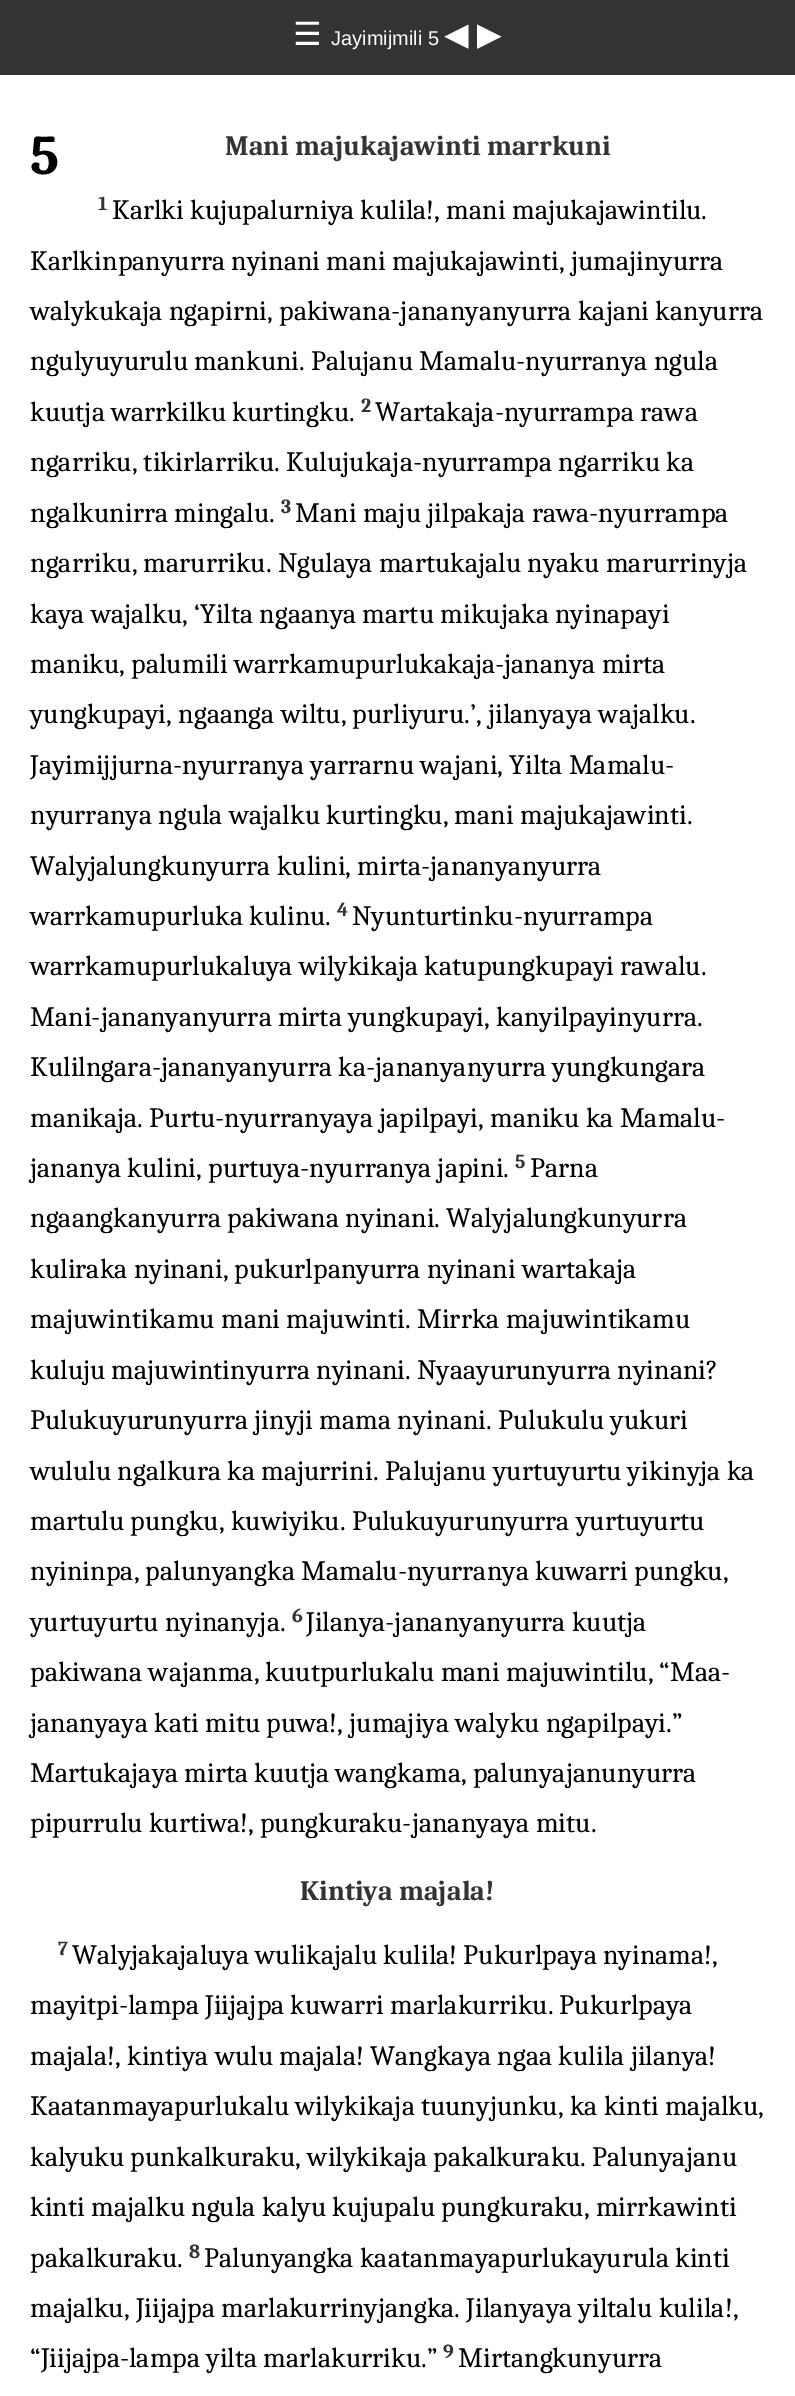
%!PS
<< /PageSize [795 2396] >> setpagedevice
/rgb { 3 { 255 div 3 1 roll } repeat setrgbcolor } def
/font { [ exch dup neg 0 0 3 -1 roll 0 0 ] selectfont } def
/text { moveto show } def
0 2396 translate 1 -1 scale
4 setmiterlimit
255 255 255 rgb
0 0 795 2396 rectfill
51 51 51 rgb
0 0 795 75 rectfill
/DejaVuSans-Regular 32 font
255 255 255 rgb
(☰) 293 45 text
/LiberationSans-Regular 20 font
(Jayimijmili 5) 331 45 text
/DejaVuSans-Regular 32 font
(◀) 444 45 text
(▶) 477 45 text
/Caladea-Bold 56 font
0 0 0 rgb
(5) 30 174 text
/Caladea-Bold 28 font
51 51 51 rgb
(Mani majukajawinti marrkuni) 225 155 text
/Caladea-Bold 20 font
(1) 98 210 text
/Caladea-Regular 28 font
0 0 0 rgb
(Karlki kujupalurniya kulila!, mani majukajawintilu.) 112 219 text
(Karlkinpanyurra nyinani mani majukajawinti, jumajinyurra) 30 270 text
(walykukaja ngapirni, pakiwana-jananyanyurra kajani kanyurra) 30 320 text
(ngulyuyurulu mankuni. Palujanu Mamalu-nyurranya ngula) 30 370 text
(kuutja warrkilku kurtingku.) 30 421 text
/Caladea-Bold 20 font
51 51 51 rgb
(2) 361 412 text
/Caladea-Regular 28 font
0 0 0 rgb
(Wartakaja-nyurrampa rawa) 375 421 text
(ngarriku, tikirlarriku. Kulujukaja-nyurrampa ngarriku ka) 30 471 text
(ngalkunirra mingalu.) 30 522 text
/Caladea-Bold 20 font
51 51 51 rgb
(3) 281 513 text
/Caladea-Regular 28 font
0 0 0 rgb
(Mani maju jilpakaja rawa-nyurrampa) 295 522 text
(ngarriku, marurriku. Ngulaya martukajalu nyaku marurrinyja) 30 572 text
(kaya wajalku, ‘Yilta ngaanya martu mikujaka nyinapayi) 30 623 text
(maniku, palumili warrkamupurlukakaja-jananya mirta) 30 673 text
(yungkupayi, ngaanga wiltu, purliyuru.’, jilanyaya wajalku.) 30 723 text
(Jayimijjurna-nyurranya yarrarnu wajani, Yilta Mamalu-) 30 774 text
(nyurranya ngula wajalku kurtingku, mani majukajawinti.) 30 824 text
(Walyjalungkunyurra kulini, mirta-jananyanyurra) 30 875 text
(warrkamupurluka kulinu.) 30 925 text
/Caladea-Bold 20 font
51 51 51 rgb
(4) 337 916 text
/Caladea-Regular 28 font
0 0 0 rgb
(Nyunturtinku-nyurrampa) 352 925 text
(warrkamupurlukaluya wilykikaja katupungkupayi rawalu.) 30 975 text
(Mani-jananyanyurra mirta yungkupayi, kanyilpayinyurra.) 30 1026 text
(Kulilngara-jananyanyurra ka-jananyanyurra yungkungara) 30 1076 text
(manikaja. Purtu-nyurranyaya japilpayi, maniku ka Mamalu-) 30 1127 text
(jananya kulini, purtuya-nyurranya japini.) 30 1177 text
/Caladea-Bold 20 font
51 51 51 rgb
(5) 515 1168 text
/Caladea-Regular 28 font
0 0 0 rgb
(Parna) 530 1177 text
(ngaangkanyurra pakiwana nyinani. Walyjalungkunyurra) 30 1227 text
(kuliraka nyinani, pukurlpanyurra nyinani wartakaja) 30 1278 text
(majuwintikamu mani majuwinti. Mirrka majuwintikamu) 30 1328 text
(kuluju majuwintinyurra nyinani. Nyaayurunyurra nyinani?) 30 1379 text
(Pulukuyurunyurra jinyji mama nyinani. Pulukulu yukuri) 30 1429 text
(wululu ngalkura ka majurrini. Palujanu yurtuyurtu yikinyja ka) 30 1480 text
(martulu pungku, kuwiyiku. Pulukuyurunyurra yurtuyurtu) 30 1530 text
(nyininpa, palunyangka Mamalu-nyurranya kuwarri pungku,) 30 1580 text
(yurtuyurtu nyinanyja.) 30 1631 text
/Caladea-Bold 20 font
51 51 51 rgb
(6) 292 1622 text
/Caladea-Regular 28 font
0 0 0 rgb
(Jilanya-jananyanyurra kuutja) 306 1631 text
(pakiwana wajanma, kuutpurlukalu mani majuwintilu, “Maa-) 30 1681 text
(jananyaya kati mitu puwa!, jumajiya walyku ngapilpayi.”) 30 1732 text
(Martukajaya mirta kuutja wangkama, palunyajanunyurra) 30 1782 text
(pipurrulu kurtiwa!, pungkuraku-jananyaya mitu.) 30 1832 text
/Caladea-Bold 28 font
51 51 51 rgb
(Kintiya majala!) 300 1900 text
/Caladea-Bold 20 font
(7) 58 1955 text
/Caladea-Regular 28 font
0 0 0 rgb
(Walyjakajaluya wulikajalu kulila! Pukurlpaya nyinama!,) 72 1964 text
(mayitpi-lampa Jiijajpa kuwarri marlakurriku. Pukurlpaya) 30 2014 text
(majala!, kintiya wulu majala! Wangkaya ngaa kulila jilanya!) 30 2065 text
(Kaatanmayapurlukalu wilykikaja tuunyjunku, ka kinti majalku,) 30 2115 text
(kalyuku punkalkuraku, wilykikaja pakalkuraku. Palunyajanu) 30 2166 text
(kinti majalku ngula kalyu kujupalu pungkuraku, mirrkawinti) 30 2216 text
(pakalkuraku.) 30 2267 text
/Caladea-Bold 20 font
51 51 51 rgb
(8) 189 2258 text
/Caladea-Regular 28 font
0 0 0 rgb
(Palunyangka kaatanmayapurlukayurula kinti) 204 2267 text
(majalku, Jiijajpa marlakurrinyjangka. Jilanyaya yiltalu kulila!,) 30 2317 text
(“Jiijajpa-lampa yilta marlakurriku.”) 30 2367 text
/Caladea-Bold 20 font
51 51 51 rgb
(9) 443 2358 text
/Caladea-Regular 28 font
0 0 0 rgb
(Mirtangkunyurra) 458 2367 text
showpage
